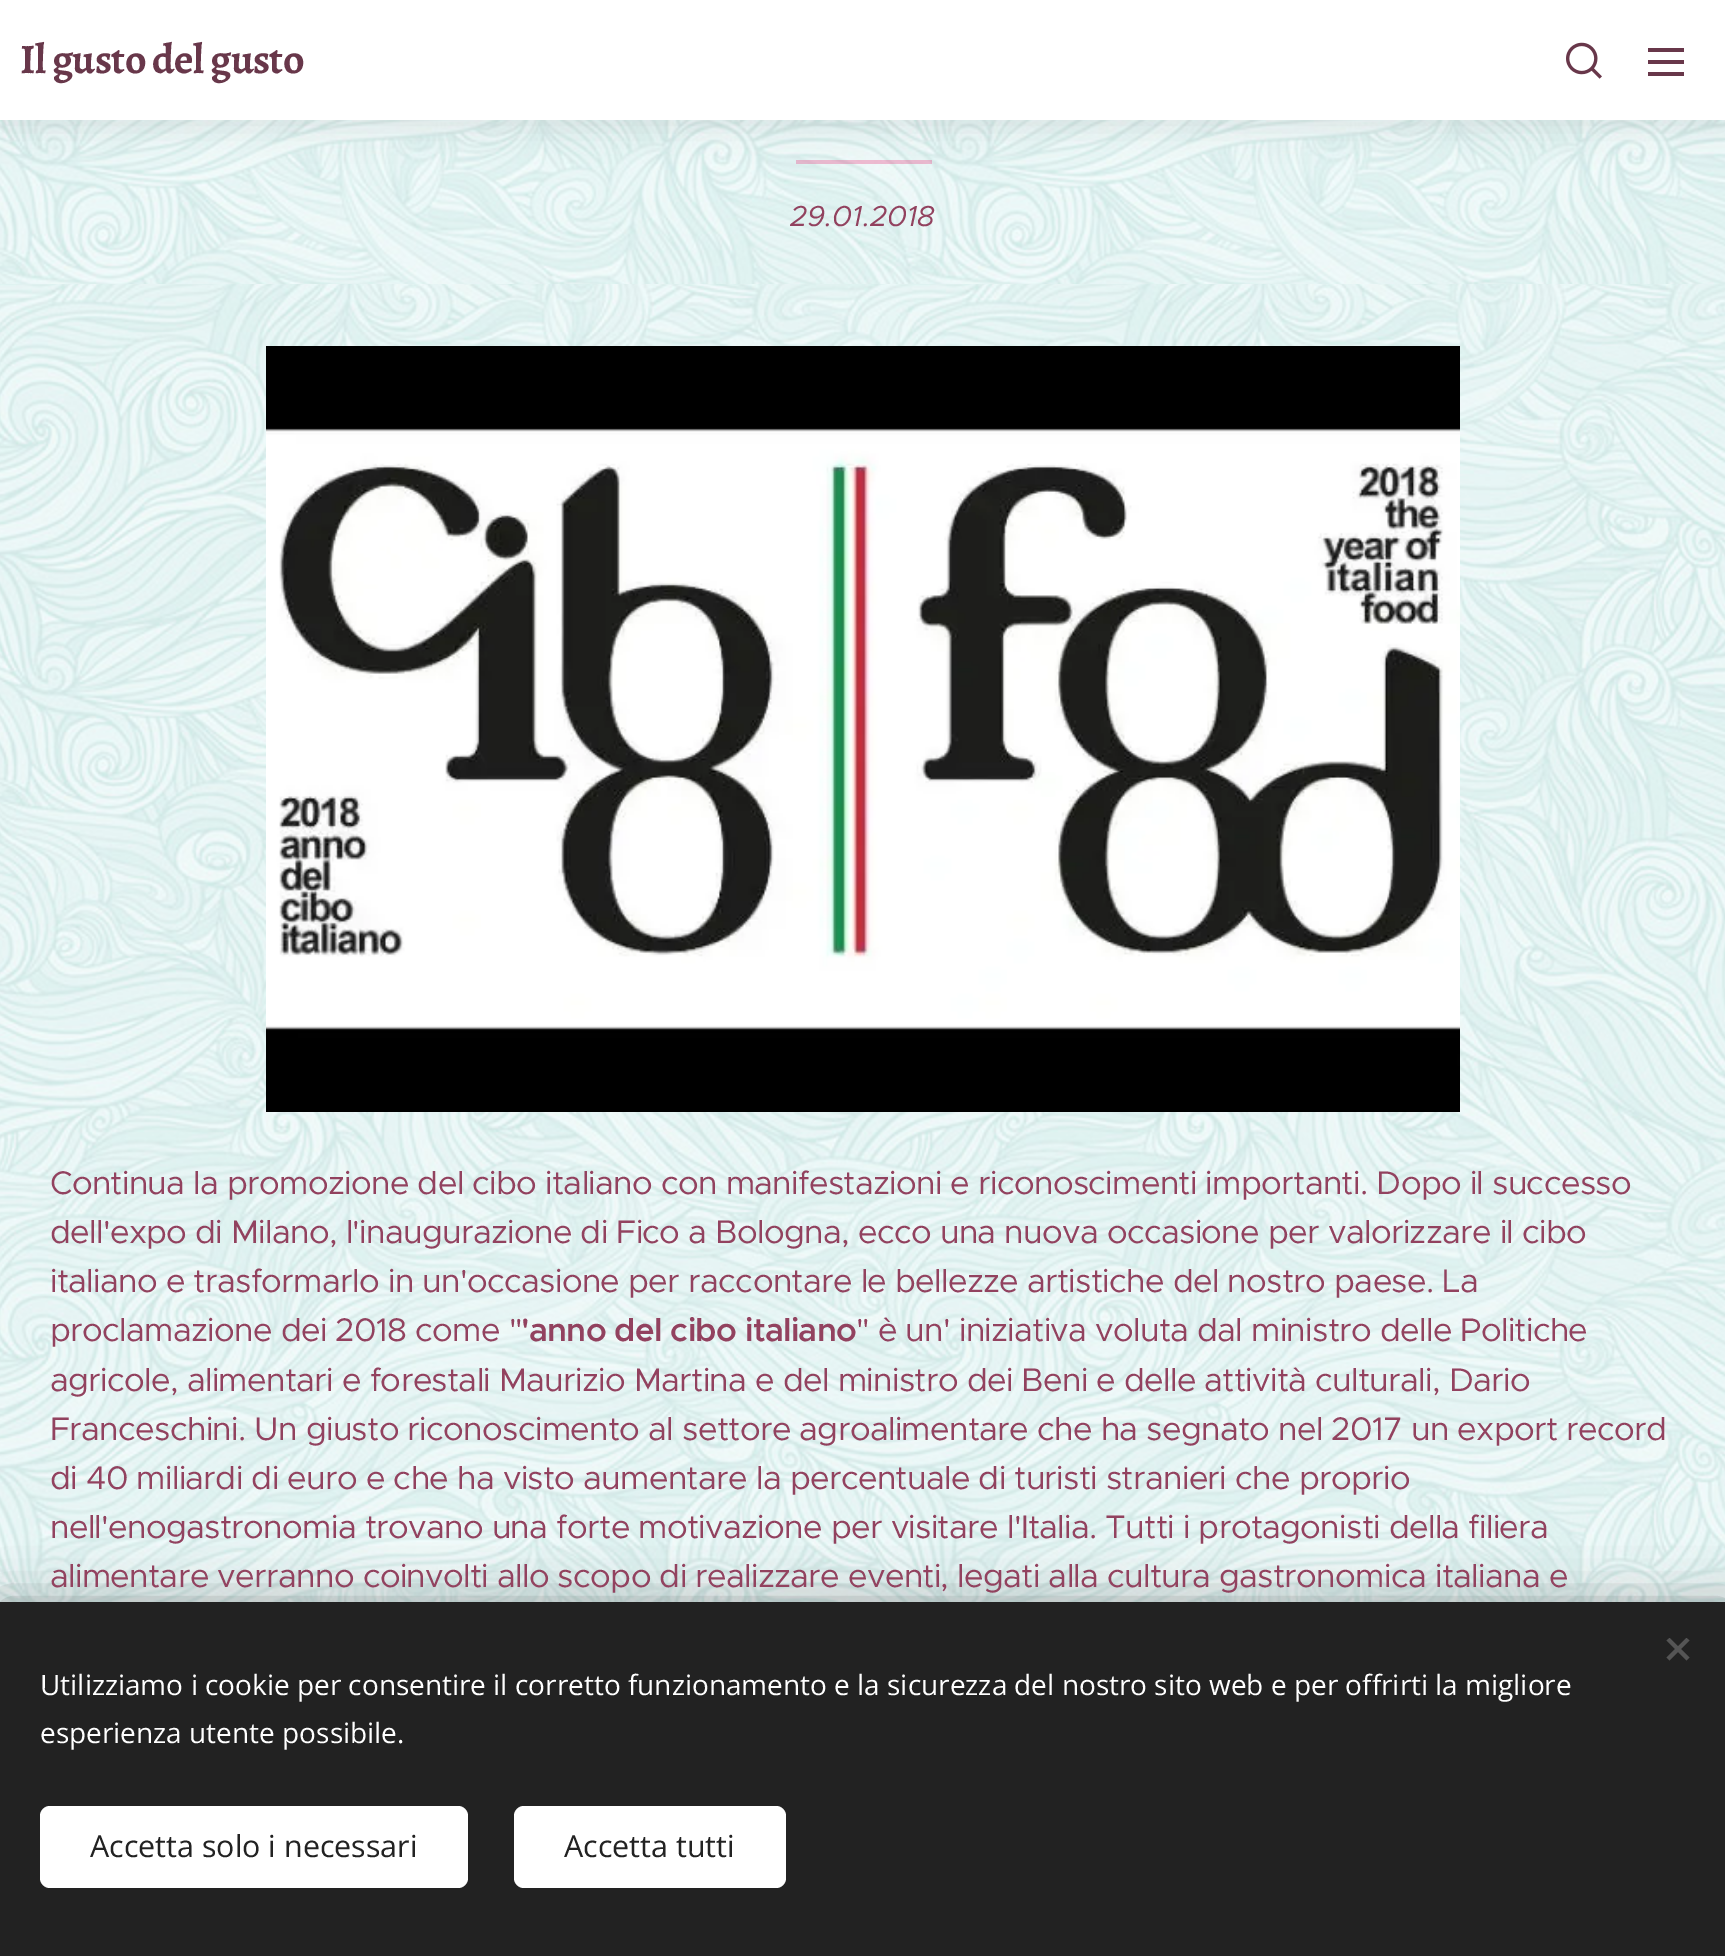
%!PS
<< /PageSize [1725 1956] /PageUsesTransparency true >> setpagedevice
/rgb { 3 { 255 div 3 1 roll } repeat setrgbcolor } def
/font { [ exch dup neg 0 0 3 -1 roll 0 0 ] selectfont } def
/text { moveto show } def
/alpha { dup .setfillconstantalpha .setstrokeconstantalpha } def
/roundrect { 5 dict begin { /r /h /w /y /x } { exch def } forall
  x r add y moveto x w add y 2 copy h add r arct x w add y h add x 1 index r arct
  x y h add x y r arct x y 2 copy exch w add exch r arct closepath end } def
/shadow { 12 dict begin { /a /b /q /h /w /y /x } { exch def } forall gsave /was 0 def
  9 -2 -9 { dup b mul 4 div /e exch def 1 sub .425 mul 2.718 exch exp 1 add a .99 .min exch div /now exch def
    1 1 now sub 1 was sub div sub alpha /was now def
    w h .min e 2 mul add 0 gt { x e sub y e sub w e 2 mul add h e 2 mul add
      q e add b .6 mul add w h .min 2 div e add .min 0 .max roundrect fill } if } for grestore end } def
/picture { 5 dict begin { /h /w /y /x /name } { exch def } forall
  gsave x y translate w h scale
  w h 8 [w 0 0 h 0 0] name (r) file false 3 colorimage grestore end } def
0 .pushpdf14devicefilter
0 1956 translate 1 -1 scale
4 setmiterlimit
255 255 255 rgb
0 0 1725 1956 rectfill
(img_02.rgb) 0 120 1725 164 picture
0.3 alpha
234 45 117 rgb
796 160 136 4 rectfill
1 alpha
0 0 0 rgb
0 10 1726 120 0 15 0.07 shadow
255 255 255 rgb
0 0 1725 120 rectfill
(img_01.rgb) 1566 42 36 37 picture
104 55 74 rgb
1648 60 36 4 rectfill
1648 48 36 4 rectfill
1648 72 36 4 rectfill
(img_03.rgb) 0 284 1725 1318 picture
(img_04.rgb) 266 346 1194 766 picture
0 0 0 rgb
0 1602 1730 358 0 25 0.33 shadow
34 34 34 rgb
0 1602 1725 354 rectfill
85 85 85 rgb
1666.5 1657.5 moveto 20 -19.5 rlineto 3 2.5 rlineto -20 20 rlineto closepath fill
1669.5 1638 moveto 20 19.5 rlineto -3 3 rlineto -20 -20 rlineto closepath fill
255 255 255 rgb
40 1806 428 82 10 roundrect fill
514 1806 272 82 10 roundrect fill
/Alegreya-Bold 42 font
104 55 74 rgb
20 73 moveto -0.66 0 (Il gusto del gusto) ashow
/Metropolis-Italic 29 font
146 66 95 rgb
(29.01.2018) 790 226 text
/Metropolis-Regular 32.8 font
50 1194 moveto -0.66 0 (Continua la promozione del cibo italiano con manifestazioni e riconoscimenti importanti. Dopo il successo) ashow
50 1243 moveto -0.66 0 (dell'expo di Milano, l'inaugurazione di Fico a Bologna, ecco una nuova occasione per valorizzare il cibo) ashow
50 1292 moveto -0.66 0 (italiano e trasformarlo in un'occasione per raccontare le bellezze artistiche del nostro paese. La) ashow
50 1341 moveto -0.66 0 (proclamazione dei 2018 come ") ashow
/Metropolis-SemiBold 32.8 font
521 1341 moveto -0.66 0 ('anno del cibo italiano) ashow
/Metropolis-Regular 32.8 font
856 1341 moveto -0.66 0 (" è un' iniziativa voluta dal ministro delle Politiche) ashow
50 1391 moveto -0.66 0 (agricole, alimentari e forestali Maurizio Martina e del ministro dei Beni e delle attività culturali, Dario) ashow
50 1440 moveto -0.66 0 (Franceschini. Un giusto riconoscimento al settore agroalimentare che ha segnato nel 2017 un export record) ashow
50 1489 moveto -0.66 0 (di 40 miliardi di euro e che ha visto aumentare la percentuale di turisti stranieri che proprio) ashow
50 1538 moveto -0.66 0 (nell'enogastronomia trovano una forte motivazione per visitare l'Italia. Tutti i protagonisti della filiera) ashow
50 1587 moveto -0.66 0 (alimentare verranno coinvolti allo scopo di realizzare eventi, legati alla cultura gastronomica italiana e) ashow
/OpenSans-Regular 28 font
255 255 255 rgb
(Utilizziamo i cookie per consentire il corretto funzionamento e la sicurezza del nostro sito web e per offrirti la migliore) 40 1695 text
(esperienza utente possibile.) 40 1743 text
/OpenSans-Regular 30.4 font
34 34 34 rgb
(Accetta solo i necessari) 90 1857 text
(Accetta tutti) 564 1857 text
.poppdf14devicefilter showpage
